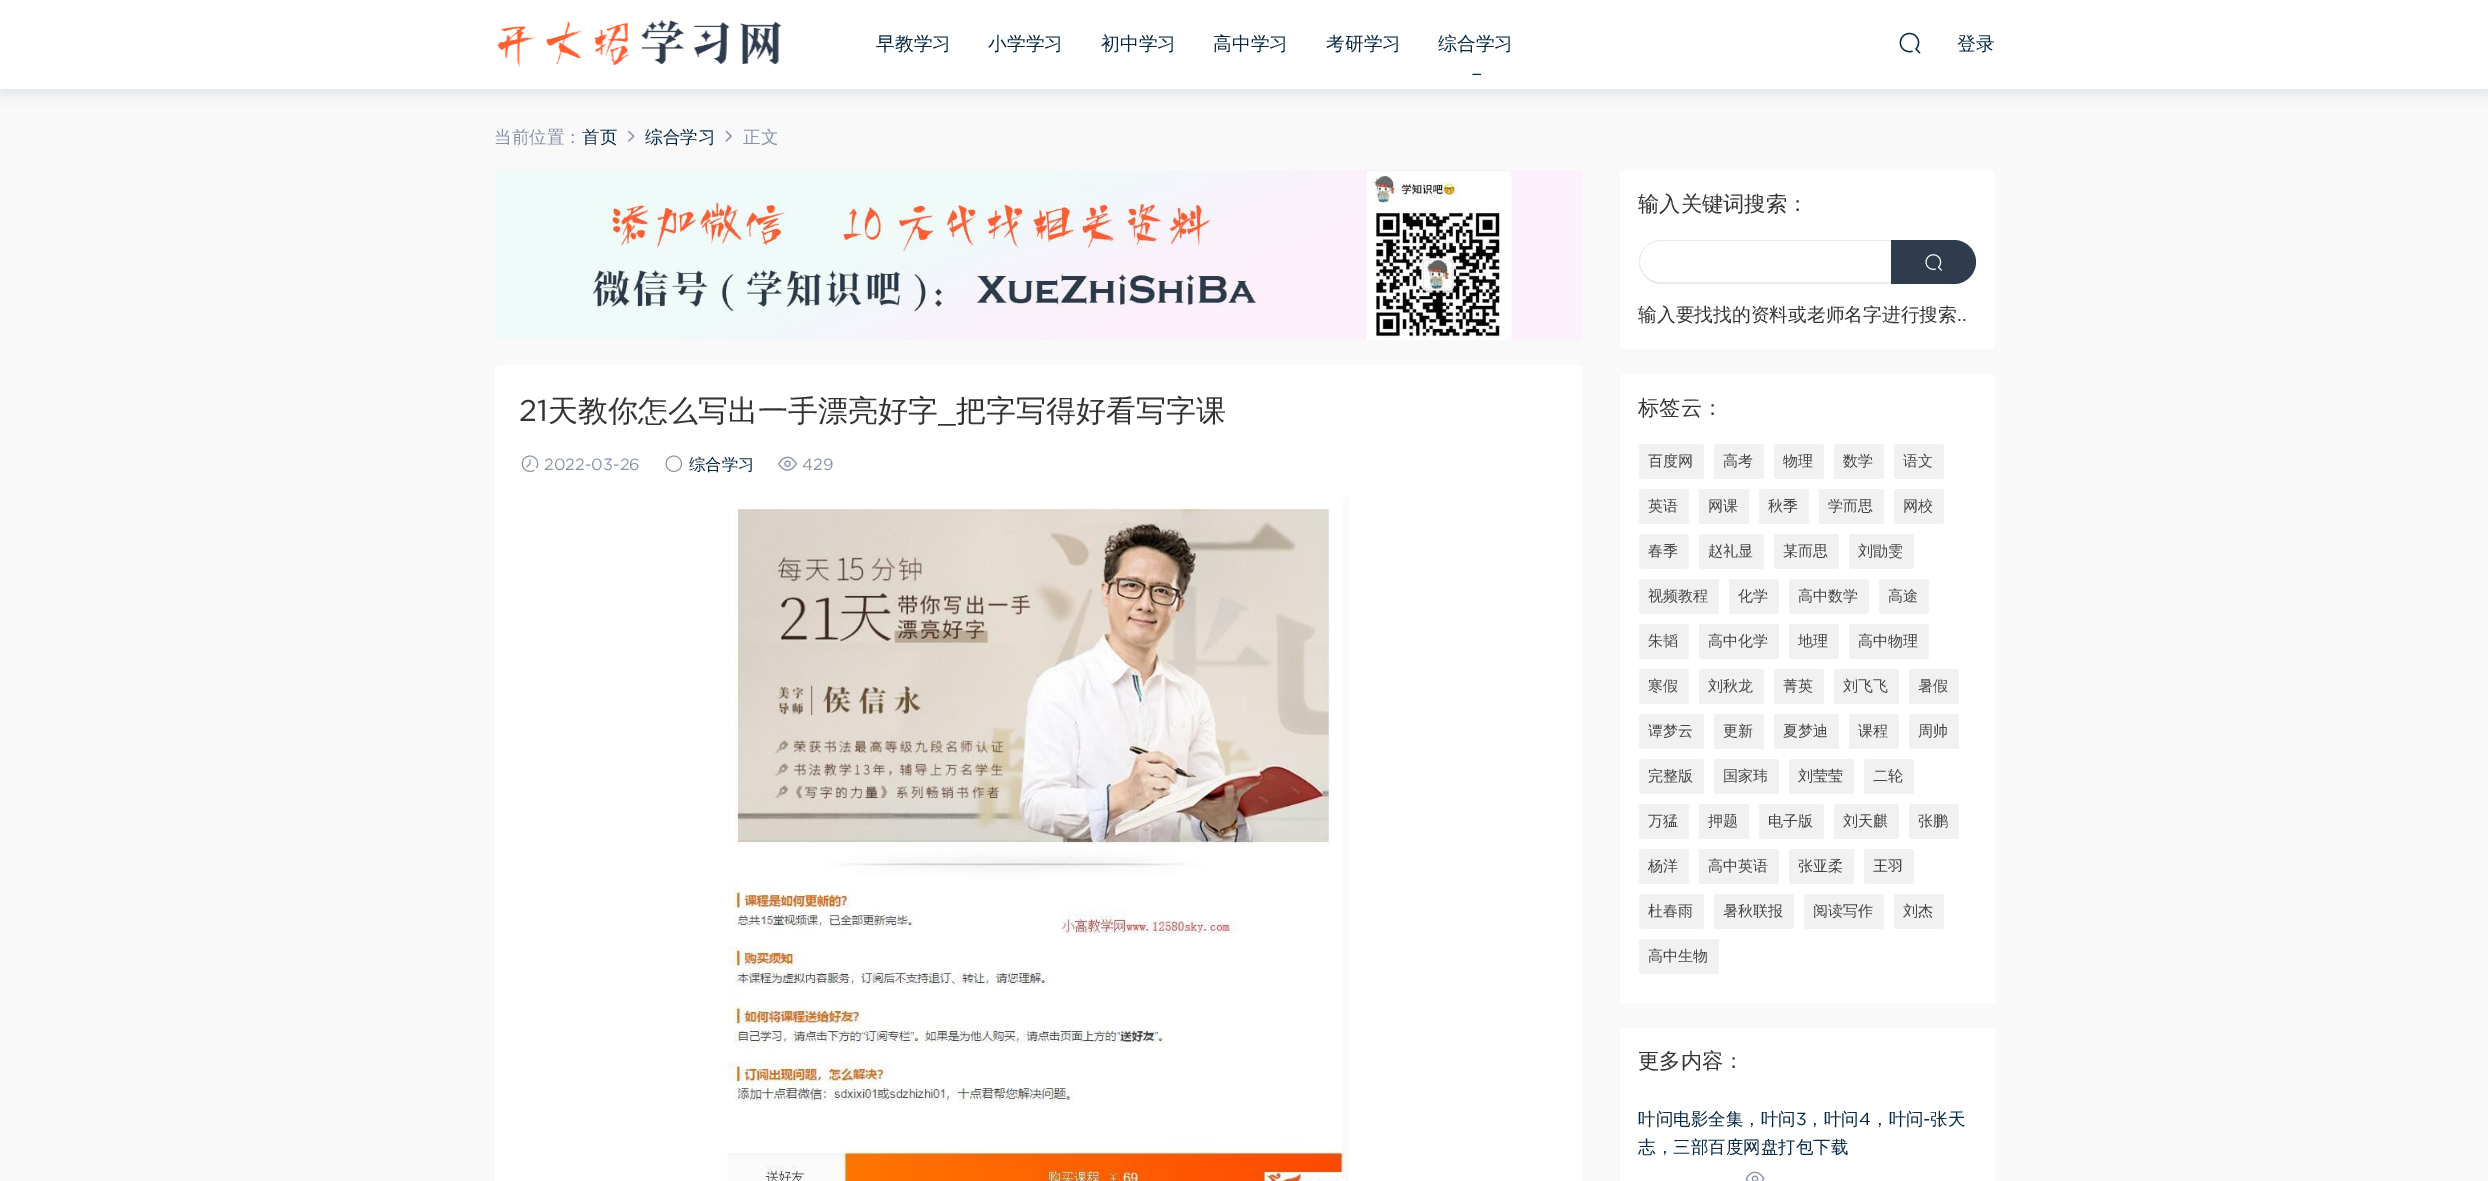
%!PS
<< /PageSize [2488 1181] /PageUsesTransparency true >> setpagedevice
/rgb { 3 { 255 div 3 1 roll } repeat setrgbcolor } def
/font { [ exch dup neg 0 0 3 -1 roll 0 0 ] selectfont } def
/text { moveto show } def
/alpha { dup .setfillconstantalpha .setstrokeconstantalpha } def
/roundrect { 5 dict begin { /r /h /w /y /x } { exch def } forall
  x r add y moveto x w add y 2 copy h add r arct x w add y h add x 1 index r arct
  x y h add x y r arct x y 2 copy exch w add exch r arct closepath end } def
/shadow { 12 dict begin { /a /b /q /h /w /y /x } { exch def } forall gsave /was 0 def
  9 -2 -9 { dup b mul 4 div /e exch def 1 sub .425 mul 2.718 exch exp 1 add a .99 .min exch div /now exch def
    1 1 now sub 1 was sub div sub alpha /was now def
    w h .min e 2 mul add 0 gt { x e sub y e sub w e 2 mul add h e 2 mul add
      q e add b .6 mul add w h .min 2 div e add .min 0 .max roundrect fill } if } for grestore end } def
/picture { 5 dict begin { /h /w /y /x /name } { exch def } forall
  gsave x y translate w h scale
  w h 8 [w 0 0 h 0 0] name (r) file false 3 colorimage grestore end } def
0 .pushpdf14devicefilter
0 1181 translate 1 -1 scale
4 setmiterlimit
249 249 249 rgb
0 0 2488 1181 rectfill
17 58 93 rgb
0 6 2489 89 0 6 0.1 shadow
255 255 255 rgb
0 0 2488 89 rectfill
(img_01.rgb) 497 20 285 48 picture
(img_02.rgb) 1472 73 9 2 picture
(img_03.rgb) 1899 32 22 22 picture
(img_04.rgb) 628 130 7 12 picture
(img_05.rgb) 725 130 7 12 picture
(img_06.rgb) 495 170 1087 170 picture
495 365 1088 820 4 roundrect fill
(img_07.rgb) 521 455 18 18 picture
(img_08.rgb) 665 455 18 18 picture
(img_09.rgb) 778 456 19 15 picture
(img_10.rgb) 727 497 622 684 picture
1620 170 375 179 4 roundrect fill
234 234 234 rgb
1661 240 moveto 230 0 rlineto 0 44 rlineto -230 0 rlineto -12 0 -22 -10 -22 -22 rcurveto 0 -12 10 -22 22 -22 rcurveto closepath 1661 241 moveto 230 0 rlineto 0 41 rlineto -230 0 rlineto -12 0 -21 -9 -21 -20 rcurveto 0 -12 9 -21 21 -21 rcurveto closepath eofill
47 60 77 rgb
1891 240 moveto 63 0 rlineto 12 0 22 10 22 22 rcurveto 0 12 -10 22 -22 22 rcurveto -63 0 rlineto closepath fill
(img_11.rgb) 1925 254 17 17 picture
255 255 255 rgb
1620 374 375 629 4 roundrect fill
241 241 241 rgb
1639 444 65 35 2.5 roundrect fill
1714 444 50 35 2.5 roundrect fill
1774 444 50 35 2.5 roundrect fill
1834 444 50 35 2.5 roundrect fill
1894 444 50 35 2.5 roundrect fill
1639 489 50 35 2.5 roundrect fill
1699 489 50 35 2.5 roundrect fill
1759 489 50 35 2.5 roundrect fill
1819 489 65 35 2.5 roundrect fill
1894 489 50 35 2.5 roundrect fill
1639 534 50 35 2.5 roundrect fill
1699 534 65 35 2.5 roundrect fill
1774 534 65 35 2.5 roundrect fill
1849 534 65 35 2.5 roundrect fill
1639 579 80 35 2.5 roundrect fill
1729 579 50 35 2.5 roundrect fill
1789 579 80 35 2.5 roundrect fill
1879 579 50 35 2.5 roundrect fill
1639 624 50 35 2.5 roundrect fill
1699 624 80 35 2.5 roundrect fill
1789 624 50 35 2.5 roundrect fill
1849 624 80 35 2.5 roundrect fill
1639 669 50 35 2.5 roundrect fill
1699 669 65 35 2.5 roundrect fill
1774 669 50 35 2.5 roundrect fill
1834 669 65 35 2.5 roundrect fill
1909 669 50 35 2.5 roundrect fill
1639 714 65 35 2.5 roundrect fill
1714 714 50 35 2.5 roundrect fill
1774 714 65 35 2.5 roundrect fill
1849 714 50 35 2.5 roundrect fill
1909 714 50 35 2.5 roundrect fill
1639 759 65 35 2.5 roundrect fill
1714 759 65 35 2.5 roundrect fill
1789 759 65 35 2.5 roundrect fill
1864 759 50 35 2.5 roundrect fill
1639 804 50 35 2.5 roundrect fill
1699 804 50 35 2.5 roundrect fill
1759 804 65 35 2.5 roundrect fill
1834 804 65 35 2.5 roundrect fill
1909 804 50 35 2.5 roundrect fill
1639 849 50 35 2.5 roundrect fill
1699 849 80 35 2.5 roundrect fill
1789 849 65 35 2.5 roundrect fill
1864 849 50 35 2.5 roundrect fill
1639 894 65 35 2.5 roundrect fill
1714 894 80 35 2.5 roundrect fill
1804 894 80 35 2.5 roundrect fill
1894 894 50 35 2.5 roundrect fill
1639 939 80 35 2.5 roundrect fill
255 255 255 rgb
1620 1028 375 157 4 roundrect fill
(img_12.rgb) 1745 1171 20 10 picture
/WenQuanYiZenHei-Medium 18.75 font
6 39 67 rgb
(早教学习) 876 50 text
(小学学习) 988 50 text
(初中学习) 1101 50 text
(高中学习) 1213 50 text
(考研学习) 1326 50 text
(综合学习) 1438 50 text
(登录) 1957 50 text
/WenQuanYiZenHei-Medium 17.5 font
138 146 169 rgb
(当前位置：) 494 143 text
6 39 67 rgb
(首页) 582 143 text
(综合学习) 645 143 text
138 146 169 rgb
(正文) 743 143 text
/Gotham-Regular 30 font
51 51 51 rgb
(21) 519 421 text
/WenQuanYiZenHei-Medium 30 font
(天教你怎么写出一手漂亮好字) 548 421 text
/Gotham-Regular 30 font
(_) 938 421 text
/WenQuanYiZenHei-Medium 30 font
(把字写得好看写字课) 956 421 text
/Gotham-Regular 16.25 font
138 146 169 rgb
(2022-03-26) 544 470 text
/WenQuanYiZenHei-Medium 16.25 font
6 39 67 rgb
(综合学习) 689 470 text
/Gotham-Regular 16.25 font
138 146 169 rgb
(429) 802 470 text
/WenQuanYiZenHei-Medium 21.25 font
51 51 51 rgb
(输入关键词搜索：) 1638 211 text
/WenQuanYiZenHei-Medium 18.75 font
(输入要找找的资料或老师名字进行搜索) 1638 321 text
/Gotham-Regular 18.75 font
(..) 1957 321 text
/WenQuanYiZenHei-Medium 21.25 font
(标签云：) 1638 415 text
/WenQuanYiZenHei-Medium 15 font
68 68 68 rgb
(百度网) 1648 466 text
(高考) 1723 466 text
(物理) 1783 466 text
(数学) 1843 466 text
(语文) 1903 466 text
(英语) 1648 511 text
(网课) 1708 511 text
(秋季) 1768 511 text
(学而思) 1828 511 text
(网校) 1903 511 text
(春季) 1648 556 text
(赵礼显) 1708 556 text
(某而思) 1783 556 text
(刘勖雯) 1858 556 text
(视频教程) 1648 601 text
(化学) 1738 601 text
(高中数学) 1798 601 text
(高途) 1888 601 text
(朱韬) 1648 646 text
(高中化学) 1708 646 text
(地理) 1798 646 text
(高中物理) 1858 646 text
(寒假) 1648 691 text
(刘秋龙) 1708 691 text
(菁英) 1783 691 text
(刘飞飞) 1843 691 text
(暑假) 1918 691 text
(谭梦云) 1648 736 text
(更新) 1723 736 text
(夏梦迪) 1783 736 text
(课程) 1858 736 text
(周帅) 1918 736 text
(完整版) 1648 781 text
(国家玮) 1723 781 text
(刘莹莹) 1798 781 text
(二轮) 1873 781 text
(万猛) 1648 826 text
(押题) 1708 826 text
(电子版) 1768 826 text
(刘天麒) 1843 826 text
(张鹏) 1918 826 text
(杨洋) 1648 871 text
(高中英语) 1708 871 text
(张亚柔) 1798 871 text
(王羽) 1873 871 text
(杜春雨) 1648 916 text
(暑秋联报) 1723 916 text
(阅读写作) 1813 916 text
(刘杰) 1903 916 text
(高中生物) 1648 961 text
/WenQuanYiZenHei-Medium 21.25 font
51 51 51 rgb
(更多内容：) 1638 1068 text
/WenQuanYiZenHei-Medium 17.5 font
6 39 67 rgb
(叶问电影全集，叶问) 1638 1125 text
/Gotham-Regular 17.5 font
(3) 1796 1125 text
/WenQuanYiZenHei-Medium 17.5 font
(，叶问) 1806 1125 text
/Gotham-Regular 17.5 font
(4) 1859 1125 text
/WenQuanYiZenHei-Medium 17.5 font
(，叶问) 1871 1125 text
/Gotham-Regular 17.5 font
(-) 1923 1125 text
/WenQuanYiZenHei-Medium 17.5 font
(张天) 1930 1125 text
(志，三部百度网盘打包下载) 1638 1153 text
.poppdf14devicefilter showpage
